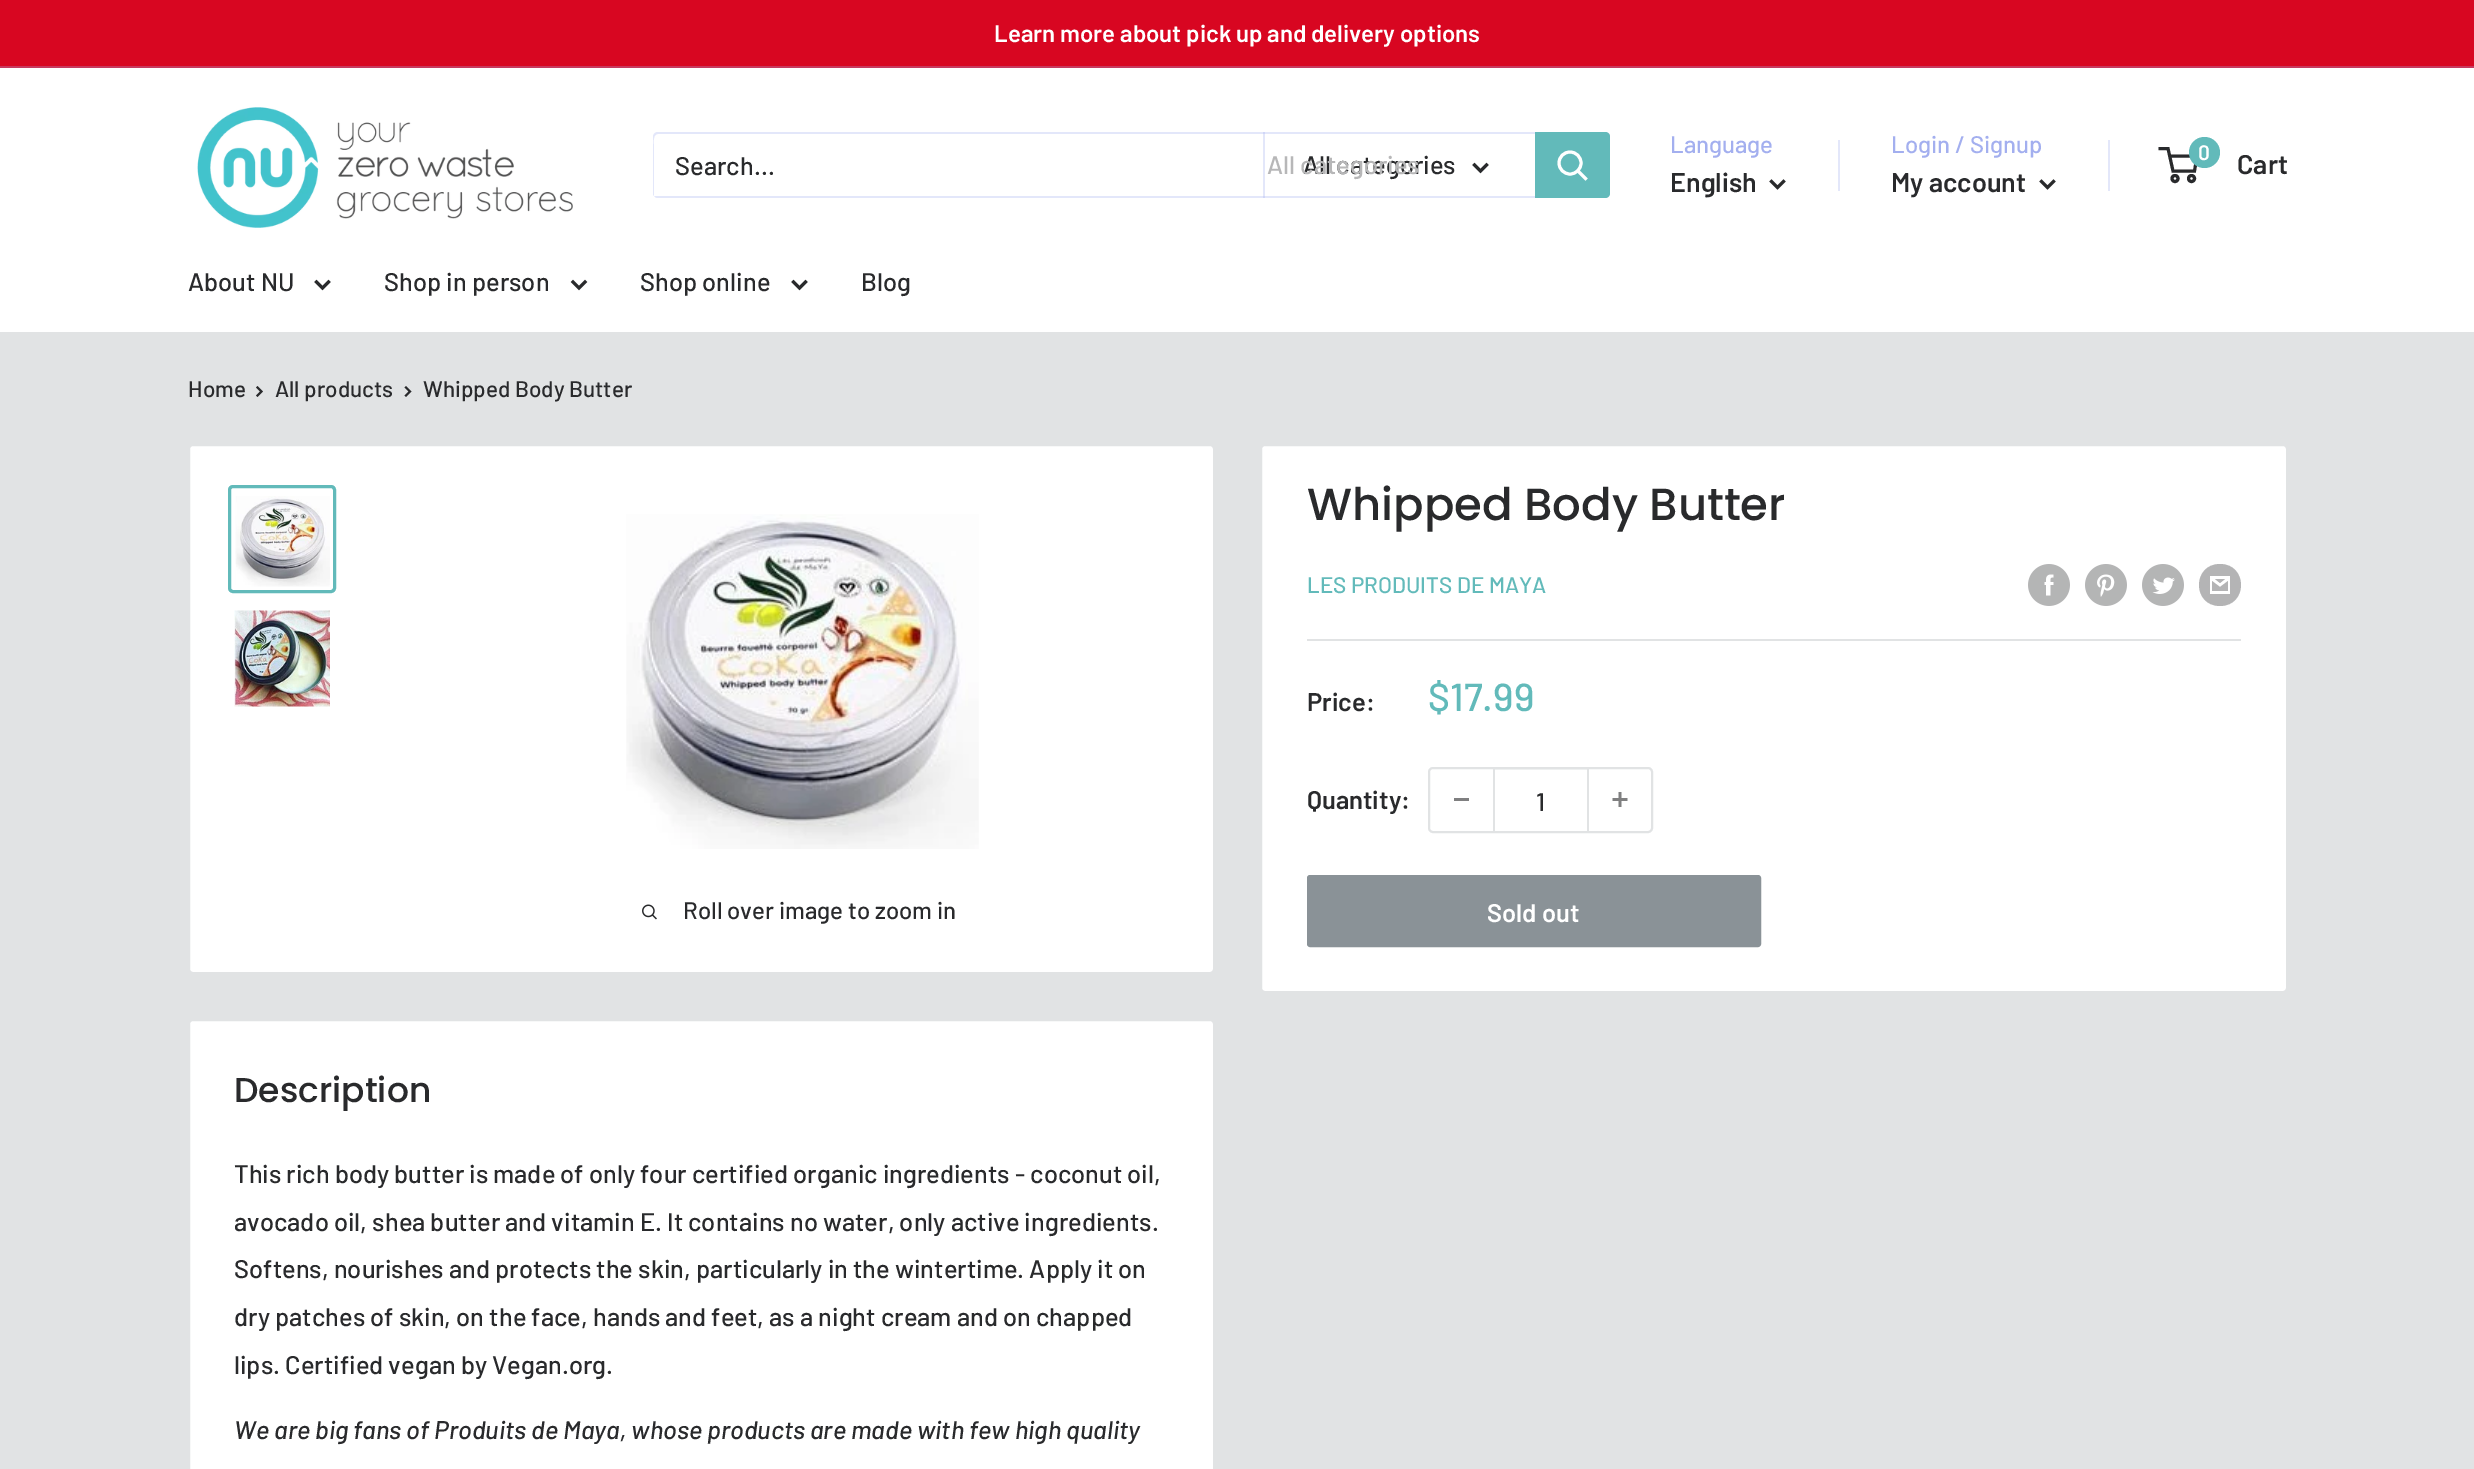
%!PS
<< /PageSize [2474 1469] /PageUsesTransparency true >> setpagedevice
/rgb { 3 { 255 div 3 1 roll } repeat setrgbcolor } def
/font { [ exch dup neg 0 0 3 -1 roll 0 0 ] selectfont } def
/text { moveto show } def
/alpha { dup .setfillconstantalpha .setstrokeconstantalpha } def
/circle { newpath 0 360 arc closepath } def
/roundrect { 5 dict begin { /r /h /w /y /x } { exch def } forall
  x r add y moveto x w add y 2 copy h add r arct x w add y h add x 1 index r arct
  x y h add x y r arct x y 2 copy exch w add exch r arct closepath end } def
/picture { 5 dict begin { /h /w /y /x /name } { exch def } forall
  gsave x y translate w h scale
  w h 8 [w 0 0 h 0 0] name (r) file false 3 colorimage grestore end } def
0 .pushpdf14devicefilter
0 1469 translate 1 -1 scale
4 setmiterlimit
225 227 228 rgb
0 0 2474 1469 rectfill
216 6 33 rgb
0 0 2474 66 rectfill
200 57 95 rgb
0 66 2474 2 rectfill
255 255 255 rgb
0 68 2474 264 rectfill
(img_01.rgb) 197 107 376 121 picture
227 231 250 rgb
654 196 moveto 1 1 2 2 4 2 rcurveto 947 0 rlineto 3 0 5 -2 5 -5 rcurveto 0 -56 rlineto 0 -2 -1 -4 -3 -4 rcurveto 1 2 rlineto 0 57 rlineto 0 2 -2 4 -4 4 rcurveto -948 0 rlineto closepath fill
0.3 alpha
163 175 239 rgb
658 134 moveto 948 0 rlineto 2 0 3 1 4 1 rcurveto -1 -2 -3 -3 -5 -3 rcurveto -947 0 rlineto -3 0 -5 2 -5 5 rcurveto 0 56 rlineto 0 1 0 2 1 3 rcurveto 0 -48 rlineto 0 -3 -2 -14 4 -14 rcurveto closepath fill
1263 132 2 66 rectfill
1 alpha
41 42 44 rgb
3 setlinewidth
2 setlinecap
1486.5 165 moveto -6 6 rlineto -6 -6 rlineto stroke
98 186 186 rgb
1535 132 moveto 70 0 rlineto 3 0 5 2 5 5 rcurveto 0 56 rlineto 0 3 -2 5 -5 5 rcurveto -70 0 rlineto closepath fill
255 255 255 rgb
1585.5 178.5 moveto -7.5 -7.5 rlineto stroke
0 setlinecap
1570 163 11 circle stroke
41 42 44 rgb
2 setlinecap
1783.5 181.5 moveto -6 6 rlineto -6 -6 rlineto stroke
227 231 250 rgb
1838 140 2 51 rectfill
2108 140 2 51 rectfill
41 42 44 rgb
2053.5 181.5 moveto -6 6 rlineto -6 -6 rlineto stroke
0 setlinecap
2175 178.5 3 circle stroke
2191.5 178.5 3 circle stroke
2169.5 156 moveto 27.5 0 rlineto -2.5 15 rlineto -21.5 0 rlineto -5 -22.5 rlineto -9.5 0 rlineto stroke
98 186 186 rgb
2204.5 152.5 15.5 circle fill
41 42 44 rgb
2 setlinecap
328.5 282 moveto -6 6 rlineto -6 -6 rlineto stroke
585 282 moveto -6 6 rlineto -6 -6 rlineto stroke
805.5 282 moveto -6 6 rlineto -6 -6 rlineto stroke
2 setlinewidth
257.5 387.5 moveto 4 4 rlineto -4 4 rlineto stroke
406 387.5 moveto 4 4 rlineto -4 4 rlineto stroke
255 255 255 rgb
189 445 1025 528 4 roundrect gsave fill grestore
225 227 228 rgb
0 setlinecap
stroke
98 186 186 rgb
3 setlinewidth
229.5 486.5 105 105 3.5 roundrect stroke
(img_02.rgb) 235 496 95 91 picture
(img_03.rgb) 234 610 96 97 picture
(img_04.rgb) 626 514 353 335 picture
(img_05.rgb) 642 904 15 16 picture
255 255 255 rgb
1261 445 1026 547 4 roundrect gsave fill grestore
225 227 228 rgb
2 setlinewidth
stroke
(img_06.rgb) 2028 564 42 42 picture
(img_07.rgb) 2085 564 42 42 picture
(img_08.rgb) 2142 564 42 42 picture
180 180 181 rgb
2220 606 moveto -28 0 -28 -42 0 -42 rcurveto 28 0 28 42 0 42 rcurveto closepath 2215 579 moveto 10 0 rlineto -5 4 rlineto closepath 2228 581 moveto 0 10 rlineto -16 0 rlineto 0 -10 rlineto 8 6 rlineto closepath 2230 576 moveto -20 0 rlineto 0 18 rlineto 20 0 rlineto closepath fill
225 227 228 rgb
1307 639 934 2 rectfill
1429 768 223 64 4 roundrect stroke
127 127 128 rgb
1454 798 15 3 rectfill
0.4 alpha
225 227 228 rgb
1494 769 93 1 rectfill
1 alpha
1587 768 2 63 rectfill
1493 768 2 63 rectfill
(img_09.rgb) 1612 792 16 15 picture
138 146 151 rgb
1308 876 452 70 2 roundrect gsave fill grestore
stroke
255 255 255 rgb
189 1020 1025 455 4 roundrect gsave fill grestore
225 227 228 rgb
stroke
/Barlow-SemiBold 24 font
255 255 255 rgb
(Learn more about pick up and delivery options) 994 42 text
/Barlow-Medium 25.5 font
41 42 44 rgb
(Search...) 675 175 text
(All categories) 1303 174 text
183 183 184 rgb
(All categories) 1267 174 text
/Barlow-Medium 24 font
163 175 239 rgb
(Language) 1670 153 text
/Barlow-SemiBold 27 font
41 42 44 rgb
(English) 1670 192 text
/Barlow-Medium 24 font
163 175 239 rgb
(Login / Signup) 1891 153 text
/Barlow-SemiBold 27 font
41 42 44 rgb
(My account) 1891 192 text
/Barlow-SemiBold 21 font
255 255 255 rgb
(0) 2198 160 text
/Barlow-SemiBold 27 font
41 42 44 rgb
(Cart) 2237 174 text
/Barlow-Medium 25.5 font
(About NU) 188 291 text
(Shop in person) 384 291 text
(Shop online) 640 291 text
(Blog) 861 291 text
/Barlow-Medium 22.5 font
(Home) 188 397 text
(All products) 275 397 text
(Whipped Body Butter) 423 397 text
/Barlow-Medium 24 font
(Roll over image to zoom in) 683 919 text
/Poppins-Medium 45 font
(Whipped Body Butter) 1307 520 text
/Barlow-Medium 22.5 font
98 186 186 rgb
(LES PRODUITS DE MAYA) 1307 593 text
/Barlow-SemiBold 25.5 font
41 42 44 rgb
(Price:) 1307 711 text
/Barlow-Medium 39 font
98 186 186 rgb
($17.99) 1428 711 text
/Barlow-SemiBold 25.5 font
41 42 44 rgb
(Quantity:) 1307 809 text
/Barlow-Medium 25.5 font
(1) 1536 811 text
/Barlow-SemiBold 25.5 font
255 255 255 rgb
(Sold out) 1487 922 text
/Poppins-Medium 34.5 font
41 42 44 rgb
(Description) 234 1102 text
/Barlow-Medium 25.5 font
(This rich body butter is made of only four certified organic ingredients - coconut oil,) 234 1183 text
(avocado oil, shea butter and vitamin E. It contains no water, only active ingredients.) 234 1231 text
(Softens, nourishes and protects the skin, particularly in the wintertime. Apply it on) 234 1278 text
(dry patches of skin, on the face, hands and feet, as a night cream and on chapped) 234 1326 text
(lips. Certified vegan by Vegan.org.) 234 1374 text
/Barlow-MediumItalic 25.5 font
(We are big fans of Produits de Maya, whose products are made with few high quality) 234 1439 text
.poppdf14devicefilter showpage
